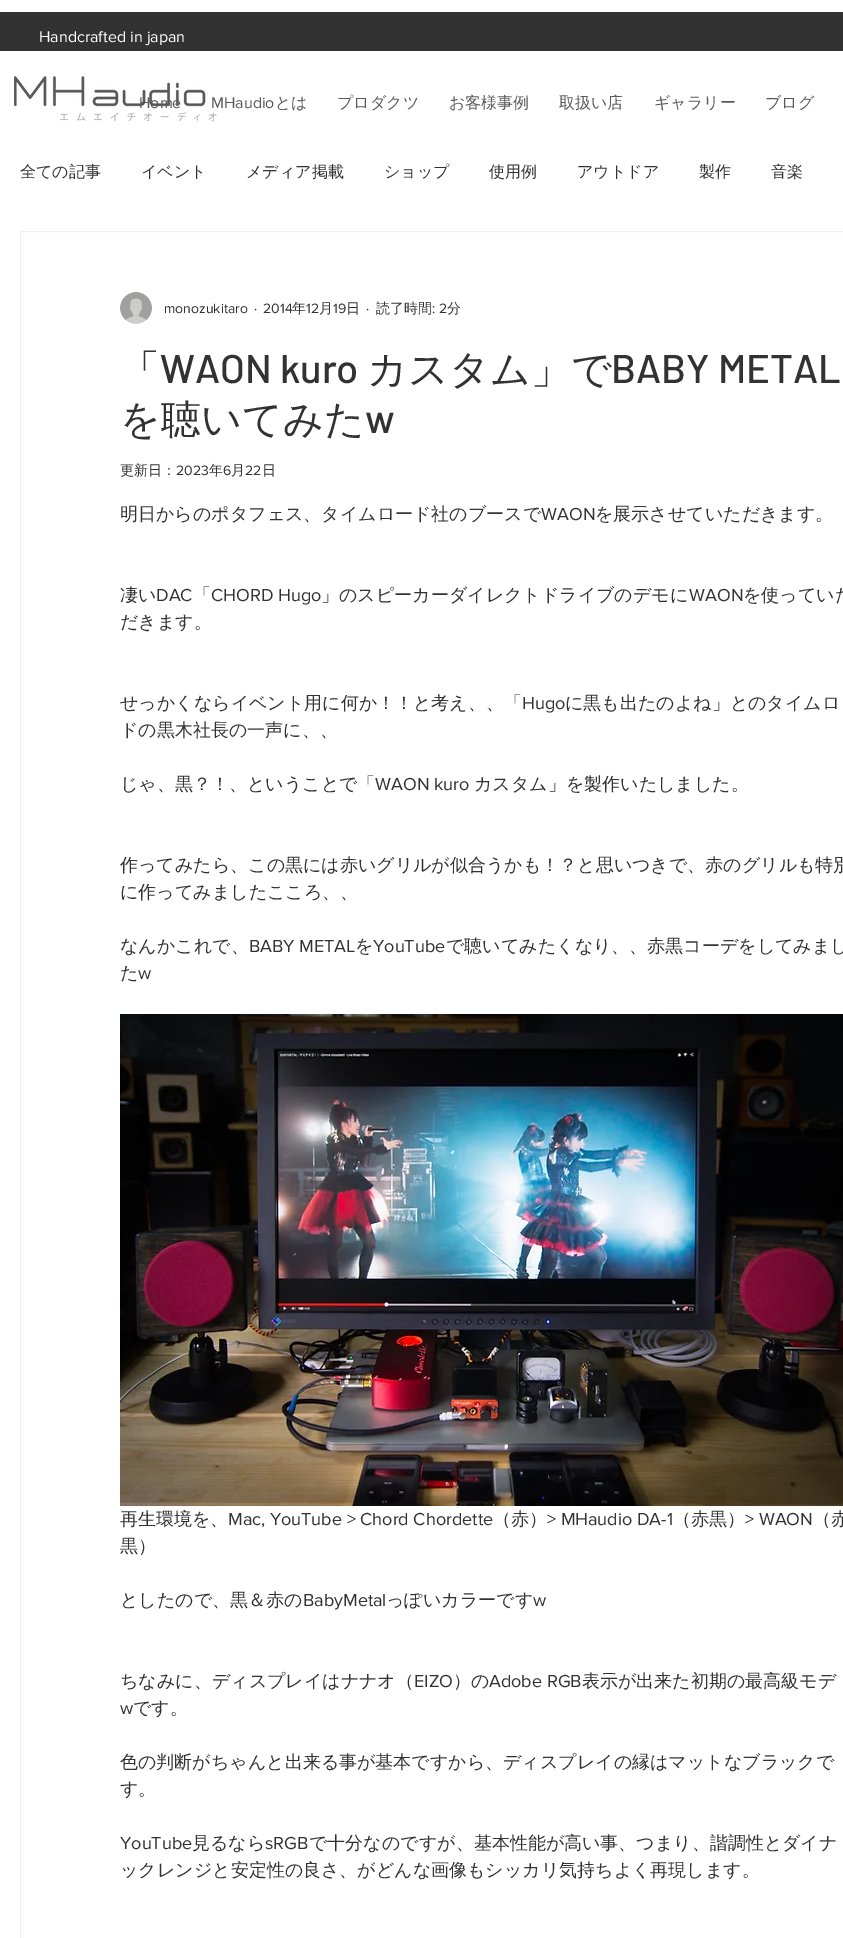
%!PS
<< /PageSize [843 1938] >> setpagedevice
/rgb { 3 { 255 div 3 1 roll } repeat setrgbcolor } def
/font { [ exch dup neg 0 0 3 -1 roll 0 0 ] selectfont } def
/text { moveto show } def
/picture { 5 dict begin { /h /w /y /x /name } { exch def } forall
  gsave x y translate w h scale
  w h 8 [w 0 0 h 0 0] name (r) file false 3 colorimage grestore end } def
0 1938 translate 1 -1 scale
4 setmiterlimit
255 255 255 rgb
0 0 843 1938 rectfill
50 50 50 rgb
0 12 843 39 rectfill
(img_01.rgb) 14 76 203 46 picture
240 240 240 rgb
20.5 231.5 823 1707 rectstroke
(img_02.rgb) 120 292 32 32 picture
(img_03.rgb) 120 1014 723 492 picture
/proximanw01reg-Regular 16 font
255 255 255 rgb
(Handcrafted in japan) 39 42 text
89 89 89 rgb
(Home) 139 108 text
(MHaudio) 211 108 text
/WenQuanYiZenHei-Medium 16 font
(とは) 275 108 text
(プロダクツ) 337 108 text
(お客様事例) 449 108 text
(取扱い店) 559 108 text
(ギャラリー) 654 108 text
(ブログ) 765 108 text
50 50 50 rgb
(全ての記事) 20 177 text
(イベント) 141 177 text
(メディア掲載) 246 177 text
(ショップ) 384 177 text
(使用例) 489 177 text
(アウトドア) 577 177 text
(製作) 699 177 text
(音楽) 771 177 text
/proximanw01reg-Regular 14 font
(monozukitaro) 164 313 text
(·) 254 313 text
(2014) 263 313 text
/WenQuanYiZenHei-Medium 14 font
(年) 292 313 text
/proximanw01reg-Regular 14 font
(12) 306 313 text
/WenQuanYiZenHei-Medium 14 font
(月) 319 313 text
/proximanw01reg-Regular 14 font
(19) 333 313 text
/WenQuanYiZenHei-Medium 14 font
(日) 346 313 text
/proximanw01reg-Regular 14 font
(·) 366 313 text
/WenQuanYiZenHei-Medium 14 font
(読了時間) 376 313 text
/proximanw01reg-Regular 14 font
(: 2) 432 313 text
/WenQuanYiZenHei-Medium 14 font
(分) 447 313 text
/WenQuanYiZenHei-Medium 40 font
(「) 120 383 text
/Barlow-Medium 40 font
(WAON kuro) 160 383 text
/WenQuanYiZenHei-Medium 40 font
(カスタム」で) 367 383 text
/Barlow-Medium 40 font
(BABY METAL) 611 383 text
/WenQuanYiZenHei-Medium 40 font
(を聴いてみた) 120 433 text
/Barlow-Medium 40 font
(w) 365 433 text
/WenQuanYiZenHei-Medium 14 font
(更新日：) 120 475 text
/proximanw01reg-Regular 14 font
(2023) 176 475 text
/WenQuanYiZenHei-Medium 14 font
(年) 209 475 text
/proximanw01reg-Regular 14 font
(6) 223 475 text
/WenQuanYiZenHei-Medium 14 font
(月) 231 475 text
/proximanw01reg-Regular 14 font
(22) 245 475 text
/WenQuanYiZenHei-Medium 14 font
(日) 262 475 text
/WenQuanYiZenHei-Medium 18 font
(明日からのポタフェス、タイムロード社のブースで) 120 520 text
/proximanw01reg-Regular 18 font
(WAON) 541 520 text
/WenQuanYiZenHei-Medium 18 font
(を展示させていただきます。) 595 520 text
(凄い) 120 601 text
/proximanw01reg-Regular 18 font
(DAC) 156 601 text
/WenQuanYiZenHei-Medium 18 font
(「) 193 601 text
/proximanw01reg-Regular 18 font
(CHORD Hugo) 211 601 text
/WenQuanYiZenHei-Medium 18 font
(」のスピーカーダイレクトドライブのデモに) 321 601 text
/proximanw01reg-Regular 18 font
(WAON) 689 601 text
/WenQuanYiZenHei-Medium 18 font
(を使っていた) 743 601 text
(だきます。) 120 628 text
(せっかくならイベント用に何か！！と考え、、「) 120 709 text
/proximanw01reg-Regular 18 font
(Hugo) 522 709 text
/WenQuanYiZenHei-Medium 18 font
(に黒も出たのよね」とのタイムロ) 565 709 text
(ドの黒木社長の一声に、、) 120 736 text
(じゃ、黒？！、ということで「) 120 790 text
/proximanw01reg-Regular 18 font
(WAON kuro) 375 790 text
/WenQuanYiZenHei-Medium 18 font
(カスタム」を製作いたしました。) 474 790 text
(作ってみたら、この黒には赤いグリルが似合うかも！？と思いつきで、赤のグリルも特別) 120 871 text
(に作ってみましたこころ、、) 120 898 text
(なんかこれで、) 120 952 text
/proximanw01reg-Regular 18 font
(BABY METAL) 249 952 text
/WenQuanYiZenHei-Medium 18 font
(を) 355 952 text
/proximanw01reg-Regular 18 font
(YouTube) 373 952 text
/WenQuanYiZenHei-Medium 18 font
(で聴いてみたくなり、、赤黒コーデをしてみまし) 446 952 text
(た) 120 979 text
/proximanw01reg-Regular 18 font
(w) 138 979 text
/WenQuanYiZenHei-Medium 18 font
(再生環境を、) 120 1525 text
/proximanw01reg-Regular 18 font
(Mac, YouTube > Chord Chordette) 228 1525 text
/WenQuanYiZenHei-Medium 18 font
(（赤）) 493 1525 text
/proximanw01reg-Regular 18 font
(> MHaudio DA-1) 547 1525 text
/WenQuanYiZenHei-Medium 18 font
(（赤黒）) 673 1525 text
/proximanw01reg-Regular 18 font
(> WAON) 745 1525 text
/WenQuanYiZenHei-Medium 18 font
(（赤) 813 1525 text
(黒）) 120 1552 text
(としたので、黒＆赤の) 120 1606 text
/proximanw01reg-Regular 18 font
(BabyMetal) 303 1606 text
/WenQuanYiZenHei-Medium 18 font
(っぽいカラーです) 386 1606 text
/proximanw01reg-Regular 18 font
(w) 533 1606 text
/WenQuanYiZenHei-Medium 18 font
(ちなみに、ディスプレイはナナオ（) 120 1687 text
/proximanw01reg-Regular 18 font
(EIZO) 414 1687 text
/WenQuanYiZenHei-Medium 18 font
(）の) 453 1687 text
/proximanw01reg-Regular 18 font
(Adobe RGB) 489 1687 text
/WenQuanYiZenHei-Medium 18 font
(表示が出来た初期の最高級モデ) 582 1687 text
/proximanw01reg-Regular 18 font
(w) 120 1714 text
/WenQuanYiZenHei-Medium 18 font
(です。) 133 1714 text
(色の判断がちゃんと出来る事が基本ですから、ディスプレイの縁はマットなブラックで) 120 1768 text
(す。) 120 1795 text
/proximanw01reg-Regular 18 font
(YouTube) 120 1849 text
/WenQuanYiZenHei-Medium 18 font
(見るなら) 192 1849 text
/proximanw01reg-Regular 18 font
(sRGB) 265 1849 text
/WenQuanYiZenHei-Medium 18 font
(で十分なのですが、基本性能が高い事、つまり、諧調性とダイナ) 309 1849 text
(ックレンジと安定性の良さ、がどんな画像もシッカリ気持ちよく再現します。) 120 1876 text
showpage
